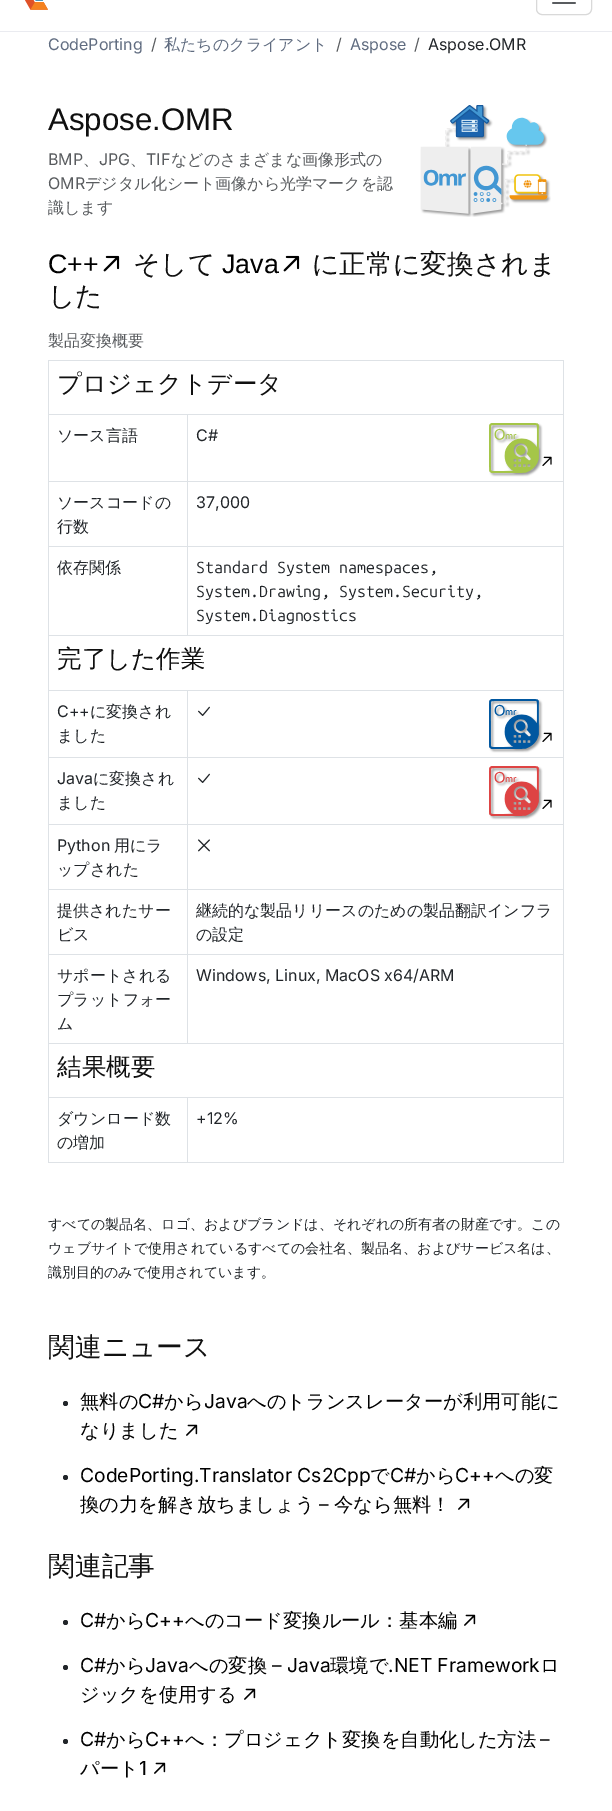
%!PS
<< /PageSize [612 1811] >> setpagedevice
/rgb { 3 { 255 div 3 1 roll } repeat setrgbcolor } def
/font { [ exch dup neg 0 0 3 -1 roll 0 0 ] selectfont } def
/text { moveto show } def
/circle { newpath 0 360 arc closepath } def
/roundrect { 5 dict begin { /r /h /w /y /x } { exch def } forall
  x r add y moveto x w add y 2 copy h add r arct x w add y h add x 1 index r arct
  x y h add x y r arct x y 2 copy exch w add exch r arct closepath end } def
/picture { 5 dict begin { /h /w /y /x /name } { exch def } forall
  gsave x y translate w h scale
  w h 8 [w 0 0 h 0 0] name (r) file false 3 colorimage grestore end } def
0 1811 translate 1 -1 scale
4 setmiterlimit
255 255 255 rgb
0 0 612 1811 rectfill
234 235 240 rgb
0 31 612 1 rectfill
(img_01.rgb) 25 0 23 10 picture
217 217 217 rgb
536.5 -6.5 55 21 5.5 roundrect stroke
(img_02.rgb) 552 2 24 2 picture
(img_03.rgb) 420 105 131 112 picture
(img_04.rgb) 103 255 17 17 picture
(img_04.rgb) 283 255 17 17 picture
222 226 230 rgb
48 360 516 1 rectfill
48 414 516 1 rectfill
(img_06.rgb) 542 456 10 10 picture
(img_05.rgb) 489 423 54 54 picture
48 481 516 1 rectfill
48 546 516 1 rectfill
48 635 516 1 rectfill
187 414 1 222 rectfill
48 690 516 1 rectfill
(img_07.rgb) 198 706 12 10 picture
(img_06.rgb) 542 732 10 10 picture
(img_08.rgb) 489 699 54 54 picture
48 757 516 1 rectfill
(img_07.rgb) 198 773 12 10 picture
(img_06.rgb) 542 799 10 10 picture
(img_09.rgb) 489 766 54 54 picture
48 824 516 1 rectfill
(img_10.rgb) 198 839 12 13 picture
48 889 516 1 rectfill
48 954 516 1 rectfill
48 1043 516 1 rectfill
187 690 1 354 rectfill
48 1097 516 1 rectfill
48 1162 516 1 rectfill
48 360 1 803 rectfill
563 360 1 803 rectfill
187 1097 1 66 rectfill
33 37 41 rgb
65.5 1403.5 2.5 circle fill
(img_11.rgb) 186 1424 12 12 picture
65.5 1477.5 2.5 circle fill
(img_11.rgb) 458 1498 12 12 picture
65.5 1622.5 2.5 circle fill
(img_11.rgb) 464 1614 12 12 picture
65.5 1667.5 2.5 circle fill
(img_11.rgb) 244 1688 12 12 picture
65.5 1741.5 2.5 circle fill
(img_11.rgb) 154 1762 12 12 picture
/Inter-Regular 16 font
96 108 128 rgb
(CodePorting) 48 50 text
89 92 95 rgb
(/) 151 50 text
/WenQuanYiZenHei-Medium 16 font
96 108 128 rgb
(私たちのクライアント) 164 50 text
/Inter-Regular 16 font
89 92 95 rgb
(/) 336 50 text
96 108 128 rgb
(Aspose) 350 50 text
89 92 95 rgb
(/) 414 50 text
33 37 41 rgb
(Aspose.OMR) 428 50 text
/LiberationSans-Regular 31.25 font
16 16 16 rgb
(Aspose.OMR) 48 130 text
/Inter-Regular 16 font
89 92 95 rgb
(BMP) 48 165 text
/WenQuanYiZenHei-Medium 16 font
(、) 83 165 text
/Inter-Regular 16 font
(JPG) 99 165 text
/WenQuanYiZenHei-Medium 16 font
(、) 130 165 text
/Inter-Regular 16 font
(TIF) 146 165 text
/WenQuanYiZenHei-Medium 16 font
(などのさまざまな画像形式の) 171 165 text
/Inter-Regular 16 font
(OMR) 48 189 text
/WenQuanYiZenHei-Medium 16 font
(デジタル化シート画像から光学マークを認) 85 189 text
(識します) 48 213 text
/LiberationSans-Regular 26.75 font
0 0 0 rgb
(C++) 48 273 text
/WenQuanYiZenHei-Medium 26.75 font
16 16 16 rgb
(そして) 133 273 text
/LiberationSans-Regular 26.75 font
0 0 0 rgb
(Java) 222 273 text
/WenQuanYiZenHei-Medium 26.75 font
16 16 16 rgb
(に正常に変換されま) 312 273 text
(した) 48 305 text
/WenQuanYiZenHei-Medium 16 font
89 92 95 rgb
(製品変換概要) 48 346 text
/WenQuanYiZenHei-Medium 24.5 font
16 16 16 rgb
(プロジェクトデータ) 57 392 text
/WenQuanYiZenHei-Medium 16 font
33 37 41 rgb
(ソース言語) 57 441 text
/Inter-Regular 16 font
(C#) 196 441 text
/WenQuanYiZenHei-Medium 16 font
(ソースコードの) 57 508 text
(行数) 57 532 text
/Inter-Regular 16 font
(37,000) 196 508 text
/WenQuanYiZenHei-Medium 16 font
(依存関係) 57 573 text
/UbuntuMono-Regular 16 font
(Standard System namespaces,) 196 573 text
(System.Drawing, System.Security,) 196 597 text
(System.Diagnostics) 196 621 text
/WenQuanYiZenHei-Medium 24.5 font
16 16 16 rgb
(完了した作業) 57 667 text
/Inter-Regular 16 font
33 37 41 rgb
(C++) 57 717 text
/WenQuanYiZenHei-Medium 16 font
(に変換され) 90 717 text
(ました) 57 741 text
/Inter-Regular 16 font
(Java) 57 784 text
/WenQuanYiZenHei-Medium 16 font
(に変換され) 93 784 text
(ました) 57 808 text
/Inter-Regular 16 font
(Python) 57 851 text
/WenQuanYiZenHei-Medium 16 font
(用にラ) 114 851 text
(ップされた) 57 875 text
(提供されたサー) 57 916 text
(ビス) 57 940 text
(継続的な製品リリースのための製品翻訳インフラ) 196 916 text
(の設定) 196 940 text
(サポートされる) 57 981 text
(プラットフォー) 57 1005 text
(ム) 57 1029 text
/Inter-Regular 16 font
(Windows, Linux, MacOS x64/ARM) 196 981 text
/WenQuanYiZenHei-Medium 24.5 font
16 16 16 rgb
(結果概要) 57 1075 text
/WenQuanYiZenHei-Medium 16 font
33 37 41 rgb
(ダウンロード数) 57 1124 text
(の増加) 57 1148 text
/Inter-Regular 16 font
(+12%) 196 1124 text
/WenQuanYiZenHei-Medium 14 font
(すべての製品名、ロゴ、およびブランドは、それぞれの所有者の財産です。この) 48 1229 text
(ウェブサイトで使用されているすべての会社名、製品名、およびサービス名は、) 48 1253 text
(識別目的のみで使用されています。) 48 1277 text
/WenQuanYiZenHei-Medium 26.75 font
16 16 16 rgb
(関連ニュース) 48 1356 text
/WenQuanYiZenHei-Medium 19.25 font
0 0 0 rgb
(無料の) 80 1408 text
/Inter-Regular 19.25 font
(C#) 138 1408 text
/WenQuanYiZenHei-Medium 19.25 font
(から) 164 1408 text
/Inter-Regular 19.25 font
(Java) 204 1408 text
/WenQuanYiZenHei-Medium 19.25 font
(へのトランスレーターが利用可能に) 247 1408 text
(なりました) 80 1437 text
/Inter-Regular 19.25 font
(CodePorting.Translator Cs2Cpp) 80 1482 text
/WenQuanYiZenHei-Medium 19.25 font
(で) 370 1482 text
/Inter-Regular 19.25 font
(C#) 390 1482 text
/WenQuanYiZenHei-Medium 19.25 font
(から) 416 1482 text
/Inter-Regular 19.25 font
(C++) 455 1482 text
/WenQuanYiZenHei-Medium 19.25 font
(への変) 495 1482 text
(換の力を解き放ちましょう) 80 1511 text
/Inter-Regular 19.25 font
(–) 319 1511 text
/WenQuanYiZenHei-Medium 19.25 font
(今なら無料！) 334 1511 text
/WenQuanYiZenHei-Medium 26.75 font
16 16 16 rgb
(関連記事) 48 1575 text
/Inter-Regular 19.25 font
0 0 0 rgb
(C#) 80 1627 text
/WenQuanYiZenHei-Medium 19.25 font
(から) 106 1627 text
/Inter-Regular 19.25 font
(C++) 145 1627 text
/WenQuanYiZenHei-Medium 19.25 font
(へのコード変換ルール：基本編) 185 1627 text
/Inter-Regular 19.25 font
(C#) 80 1672 text
/WenQuanYiZenHei-Medium 19.25 font
(から) 106 1672 text
/Inter-Regular 19.25 font
(Java) 145 1672 text
/WenQuanYiZenHei-Medium 19.25 font
(への変換) 189 1672 text
/Inter-Regular 19.25 font
(– Java) 272 1672 text
/WenQuanYiZenHei-Medium 19.25 font
(環境で) 330 1672 text
/Inter-Regular 19.25 font
(.NET Framework) 388 1672 text
/WenQuanYiZenHei-Medium 19.25 font
(ロ) 540 1672 text
(ジックを使用する) 80 1701 text
/Inter-Regular 19.25 font
(C#) 80 1746 text
/WenQuanYiZenHei-Medium 19.25 font
(から) 106 1746 text
/Inter-Regular 19.25 font
(C++) 145 1746 text
/WenQuanYiZenHei-Medium 19.25 font
(へ：プロジェクト変換を自動化した方法) 185 1746 text
/Inter-Regular 19.25 font
(–) 540 1746 text
/WenQuanYiZenHei-Medium 19.25 font
(パート) 80 1775 text
/Inter-Regular 19.25 font
(1) 139 1775 text
showpage
